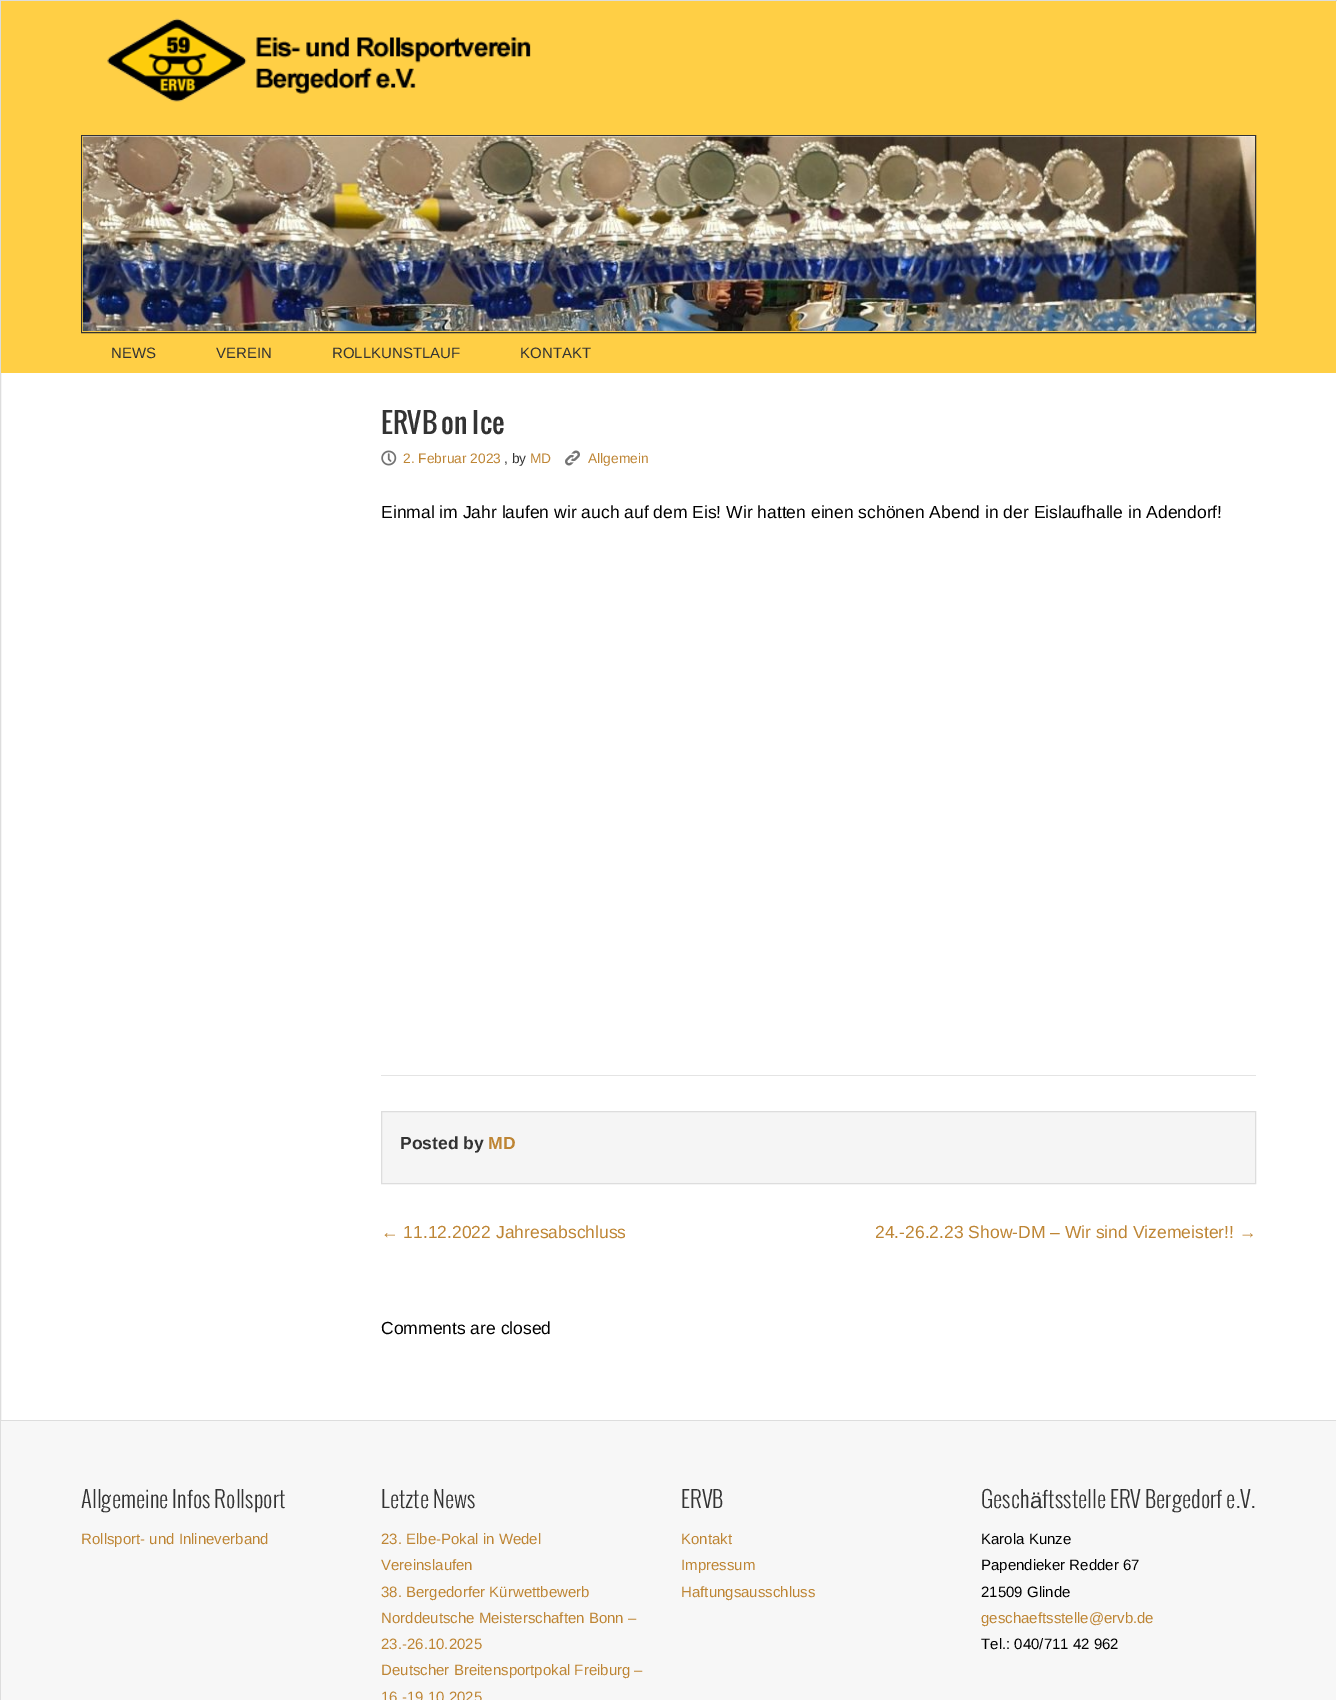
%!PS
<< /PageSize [1337 1700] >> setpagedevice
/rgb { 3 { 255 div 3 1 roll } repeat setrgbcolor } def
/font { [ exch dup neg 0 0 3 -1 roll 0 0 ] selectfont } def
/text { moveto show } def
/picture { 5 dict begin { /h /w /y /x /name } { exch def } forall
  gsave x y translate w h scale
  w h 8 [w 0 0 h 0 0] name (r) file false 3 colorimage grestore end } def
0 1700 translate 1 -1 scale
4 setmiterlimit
255 255 255 rgb
0 0 1337 1700 rectfill
221 221 221 rgb
0.5 0.5 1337 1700 rectstroke
255 207 69 rgb
1 1 1335 372 rectfill
(img_01.rgb) 107 18 424 84 picture
51 51 51 rgb
81.5 135.5 1174 197 rectstroke
255 255 255 rgb
83 136 1172 1 rectfill
(img_02.rgb) 82 136 1173 196 picture
(img_03.rgb) 381 450 16 16 picture
(img_04.rgb) 565 450 15 16 picture
228 228 228 rgb
381 1075 875 1 rectfill
245 245 245 rgb
381.5 1111.5 moveto 874 0 rlineto 0 72 rlineto -874 0 rlineto closepath gsave fill grestore
221 221 221 rgb
stroke
247 247 247 rgb
1 1421 1335 279 rectfill
221 221 221 rgb
1 1420 1335 1 rectfill
/LiberationSans-Regular 15 font
51 51 51 rgb
(NEWS) 111 358 text
(VEREIN) 216 358 text
(ROLLKUNSTLAUF) 332 358 text
(KONTAKT) 520 358 text
/Oswald-Regular 27.5 font
(ERVB on Ice) 381 434 text
/LiberationSans-Regular 13.75 font
190 133 52 rgb
(2. Februar 2023) 403 463 text
51 51 51 rgb
(, by) 504 463 text
190 133 52 rgb
(MD) 530 463 text
(Allgemein) 588 463 text
/LiberationSans-Regular 17.5 font
0 0 0 rgb
(Einmal im Jahr laufen wir auch auf dem Eis! Wir hatten einen schönen Abend in der Eislaufhalle in Adendorf!) 381 518 text
/LiberationSans-Bold 17.5 font
51 51 51 rgb
(Posted by) 400 1149 text
190 133 52 rgb
(MD) 488 1149 text
/LiberationSans-Regular 17.5 font
(← 11.12.2022 Jahresabschluss) 381 1238 text
(24.-26.2.23 Show-DM – Wir sind Vizemeister!! →) 875 1238 text
0 0 0 rgb
(Comments are closed) 381 1334 text
/Oswald-Light 22.5 font
51 51 51 rgb
(Allgemeine Infos Rollsport) 81 1508 text
/LiberationSans-Regular 15 font
190 133 52 rgb
(Rollsport- und Inlineverband) 81 1544 text
/Oswald-Light 22.5 font
51 51 51 rgb
(Letzte News) 381 1508 text
/LiberationSans-Regular 15 font
190 133 52 rgb
(23. Elbe-Pokal in Wedel) 381 1544 text
(Vereinslaufen) 381 1570 text
(38. Bergedorfer Kürwettbewerb) 381 1597 text
(Norddeutsche Meisterschaften Bonn –) 381 1623 text
(23.-26.10.2025) 381 1649 text
(Deutscher Breitensportpokal Freiburg –) 381 1675 text
(16.-19.10.2025) 381 1702 text
/Oswald-Light 22.5 font
51 51 51 rgb
(ERVB) 681 1508 text
/LiberationSans-Regular 15 font
190 133 52 rgb
(Kontakt) 681 1544 text
(Impressum) 681 1570 text
(Haftungsausschluss) 681 1597 text
/Oswald-Light 22.5 font
51 51 51 rgb
(Gesch) 981 1508 text
/LiberationSans-Regular 22.5 font
(ä) 1030 1508 text
/Oswald-Light 22.5 font
(ftsstelle ERV Bergedorf e.V.) 1042 1508 text
/LiberationSans-Regular 15 font
0 0 0 rgb
(Karola Kunze) 981 1544 text
(Papendieker Redder 67) 981 1570 text
(21509 Glinde) 981 1597 text
190 133 52 rgb
(geschaeftsstelle@ervb.de) 981 1623 text
0 0 0 rgb
(Tel.: 040/711 42 962) 981 1649 text
showpage
